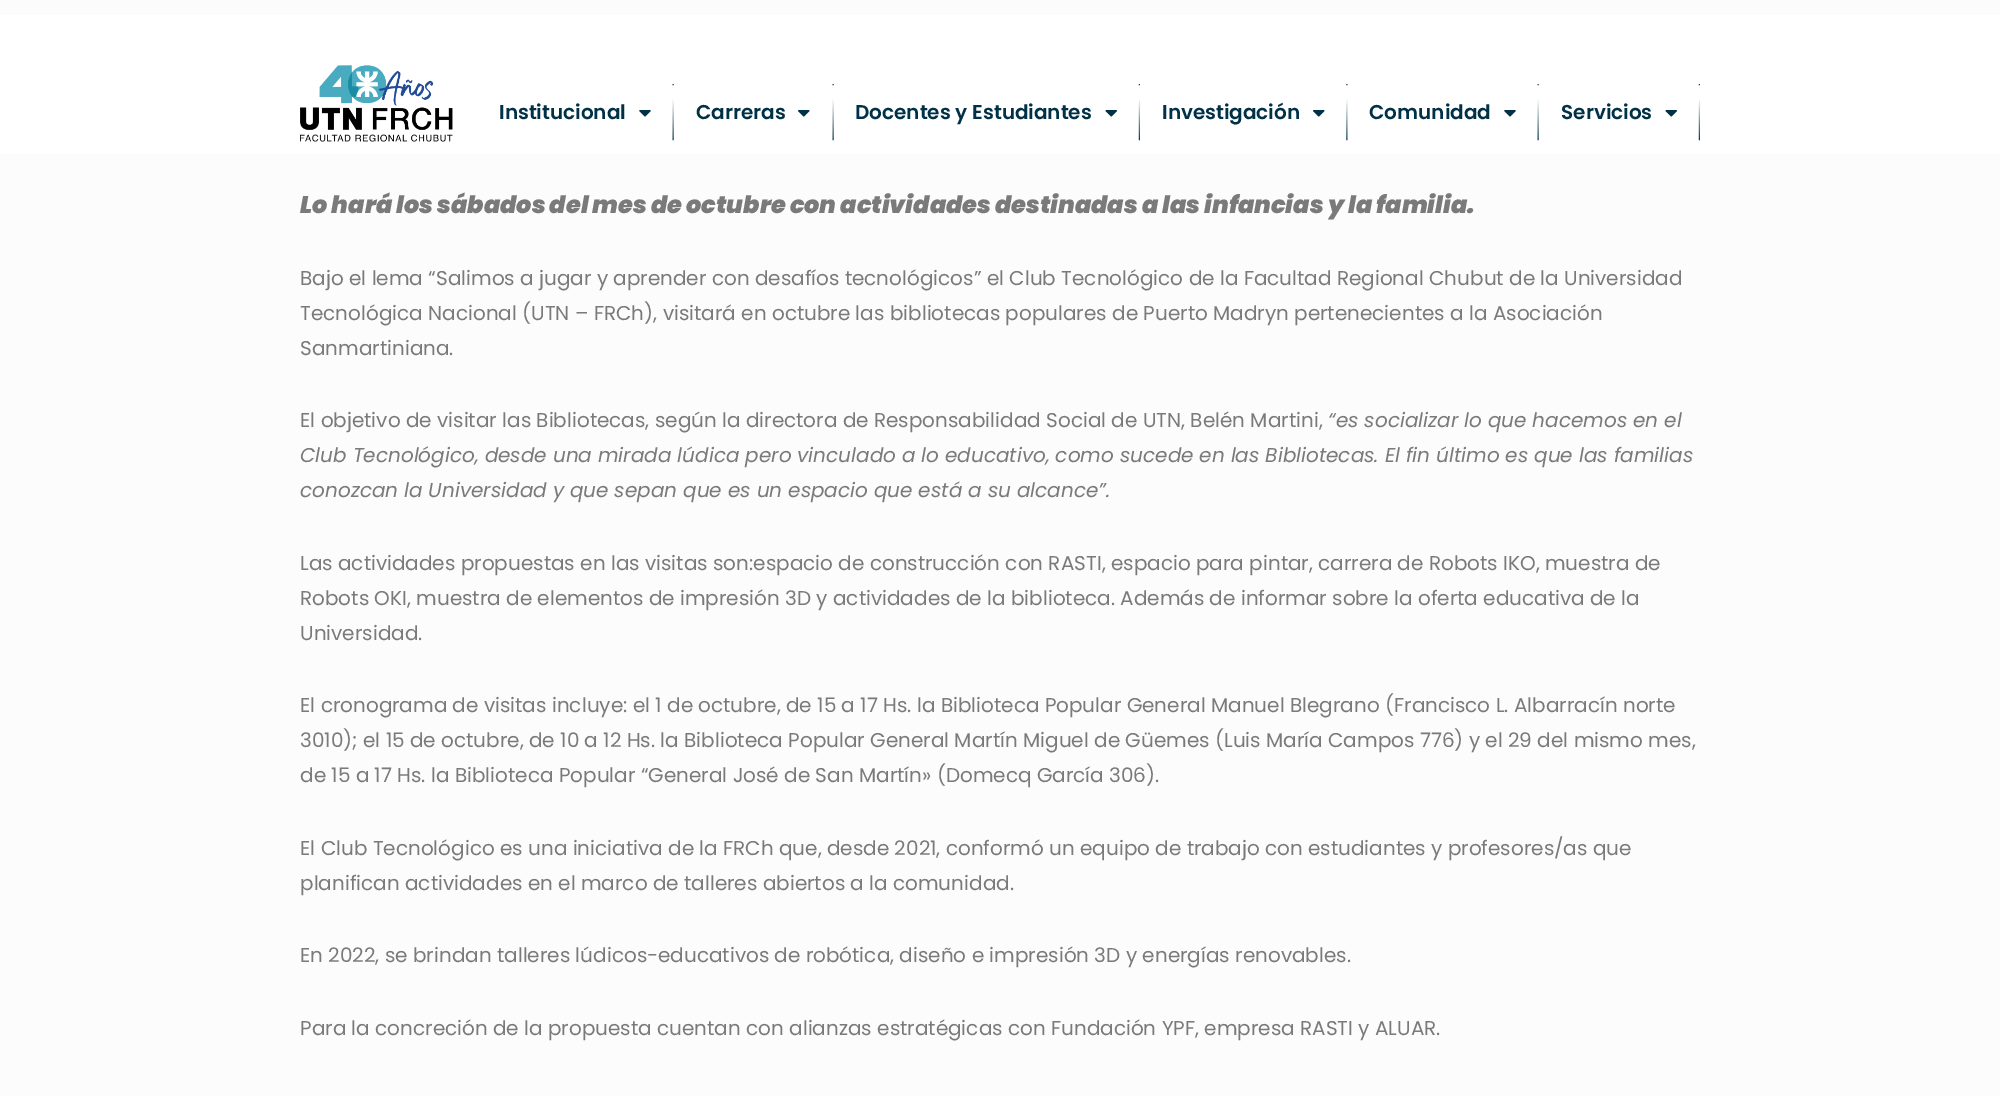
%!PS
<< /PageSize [2000 1096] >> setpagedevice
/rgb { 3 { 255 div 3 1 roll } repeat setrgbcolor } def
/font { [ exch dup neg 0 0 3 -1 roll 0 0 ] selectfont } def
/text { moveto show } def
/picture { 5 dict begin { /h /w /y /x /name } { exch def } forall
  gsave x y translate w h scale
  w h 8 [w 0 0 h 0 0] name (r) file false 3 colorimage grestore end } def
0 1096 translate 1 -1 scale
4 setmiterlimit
252 252 252 rgb
0 0 2000 1096 rectfill
255 255 255 rgb
0 15 2000 139 rectfill
(img_01.rgb) 300 65 153 77 picture
(img_02.rgb) 672 84 2 57 picture
(img_03.rgb) 639 110 12 7 picture
(img_02.rgb) 832 84 2 57 picture
(img_04.rgb) 798 110 12 7 picture
(img_05.rgb) 1138 84 2 57 picture
(img_06.rgb) 1105 110 12 7 picture
(img_07.rgb) 1346 84 2 57 picture
(img_04.rgb) 1313 110 12 7 picture
(img_02.rgb) 1537 84 2 57 picture
(img_03.rgb) 1504 110 12 7 picture
(img_05.rgb) 1698 84 2 57 picture
(img_06.rgb) 1665 110 12 7 picture
/Poppins-SemiBold 20 font
0 49 70 rgb
(Institucional) 499 119 text
(Carreras) 696 119 text
(Docentes y Estudiantes) 855 119 text
(Investigación) 1162 119 text
(Comunidad) 1369 119 text
(Servicios) 1561 119 text
/Poppins-BlackItalic 24 font
122 122 122 rgb
(Lo hará los sábados del mes de octubre con actividades destinadas a las infancias y la familia.) 300 213 text
/Poppins-Regular 20 font
(Bajo el lema “Salimos a jugar y aprender con desafíos tecnológicos” el Club Tecnológico de la Facultad Regional Chubut de la Universidad) 300 285 text
(Tecnológica Nacional \(UTN – FRCh\), visitará en octubre las bibliotecas populares de Puerto Madryn pertenecientes a la Asociación) 300 320 text
(Sanmartiniana.) 300 355 text
(El objetivo de visitar las Bibliotecas, según la directora de Responsabilidad Social de UTN, Belén Martini,) 300 427 text
/Poppins-Italic 20 font
(“es socializar lo que hacemos en el) 1328 427 text
(Club Tecnológico, desde una mirada lúdica pero vinculado a lo educativo, como sucede en las Bibliotecas. El fin último es que las familias) 300 462 text
(conozcan la Universidad y que sepan que es un espacio que está a su alcance”.) 300 497 text
/Poppins-Regular 20 font
(Las actividades propuestas en las visitas son:espacio de construcción con RASTI, espacio para pintar, carrera de Robots IKO, muestra de) 300 570 text
(Robots OKI, muestra de elementos de impresión 3D y actividades de la biblioteca. Además de informar sobre la oferta educativa de la) 300 605 text
(Universidad.) 300 640 text
(El cronograma de visitas incluye: el 1 de octubre, de 15 a 17 Hs. la Biblioteca Popular General Manuel Blegrano \(Francisco L. Albarracín norte) 300 712 text
(3010\); el 15 de octubre, de 10 a 12 Hs. la Biblioteca Popular General Martín Miguel de Güemes \(Luis María Campos 776\) y el 29 del mismo mes,) 300 747 text
(de 15 a 17 Hs. la Biblioteca Popular “General José de San Martín» \(Domecq García 306\).) 300 782 text
(El Club Tecnológico es una iniciativa de la FRCh que, desde 2021, conformó un equipo de trabajo con estudiantes y profesores/as que) 300 855 text
(planifican actividades en el marco de talleres abiertos a la comunidad.) 300 890 text
(En 2022, se brindan talleres lúdicos-educativos de robótica, diseño e impresión 3D y energías renovables.) 300 962 text
(Para la concreción de la propuesta cuentan con alianzas estratégicas con Fundación YPF, empresa RASTI y ALUAR.) 300 1035 text
showpage
